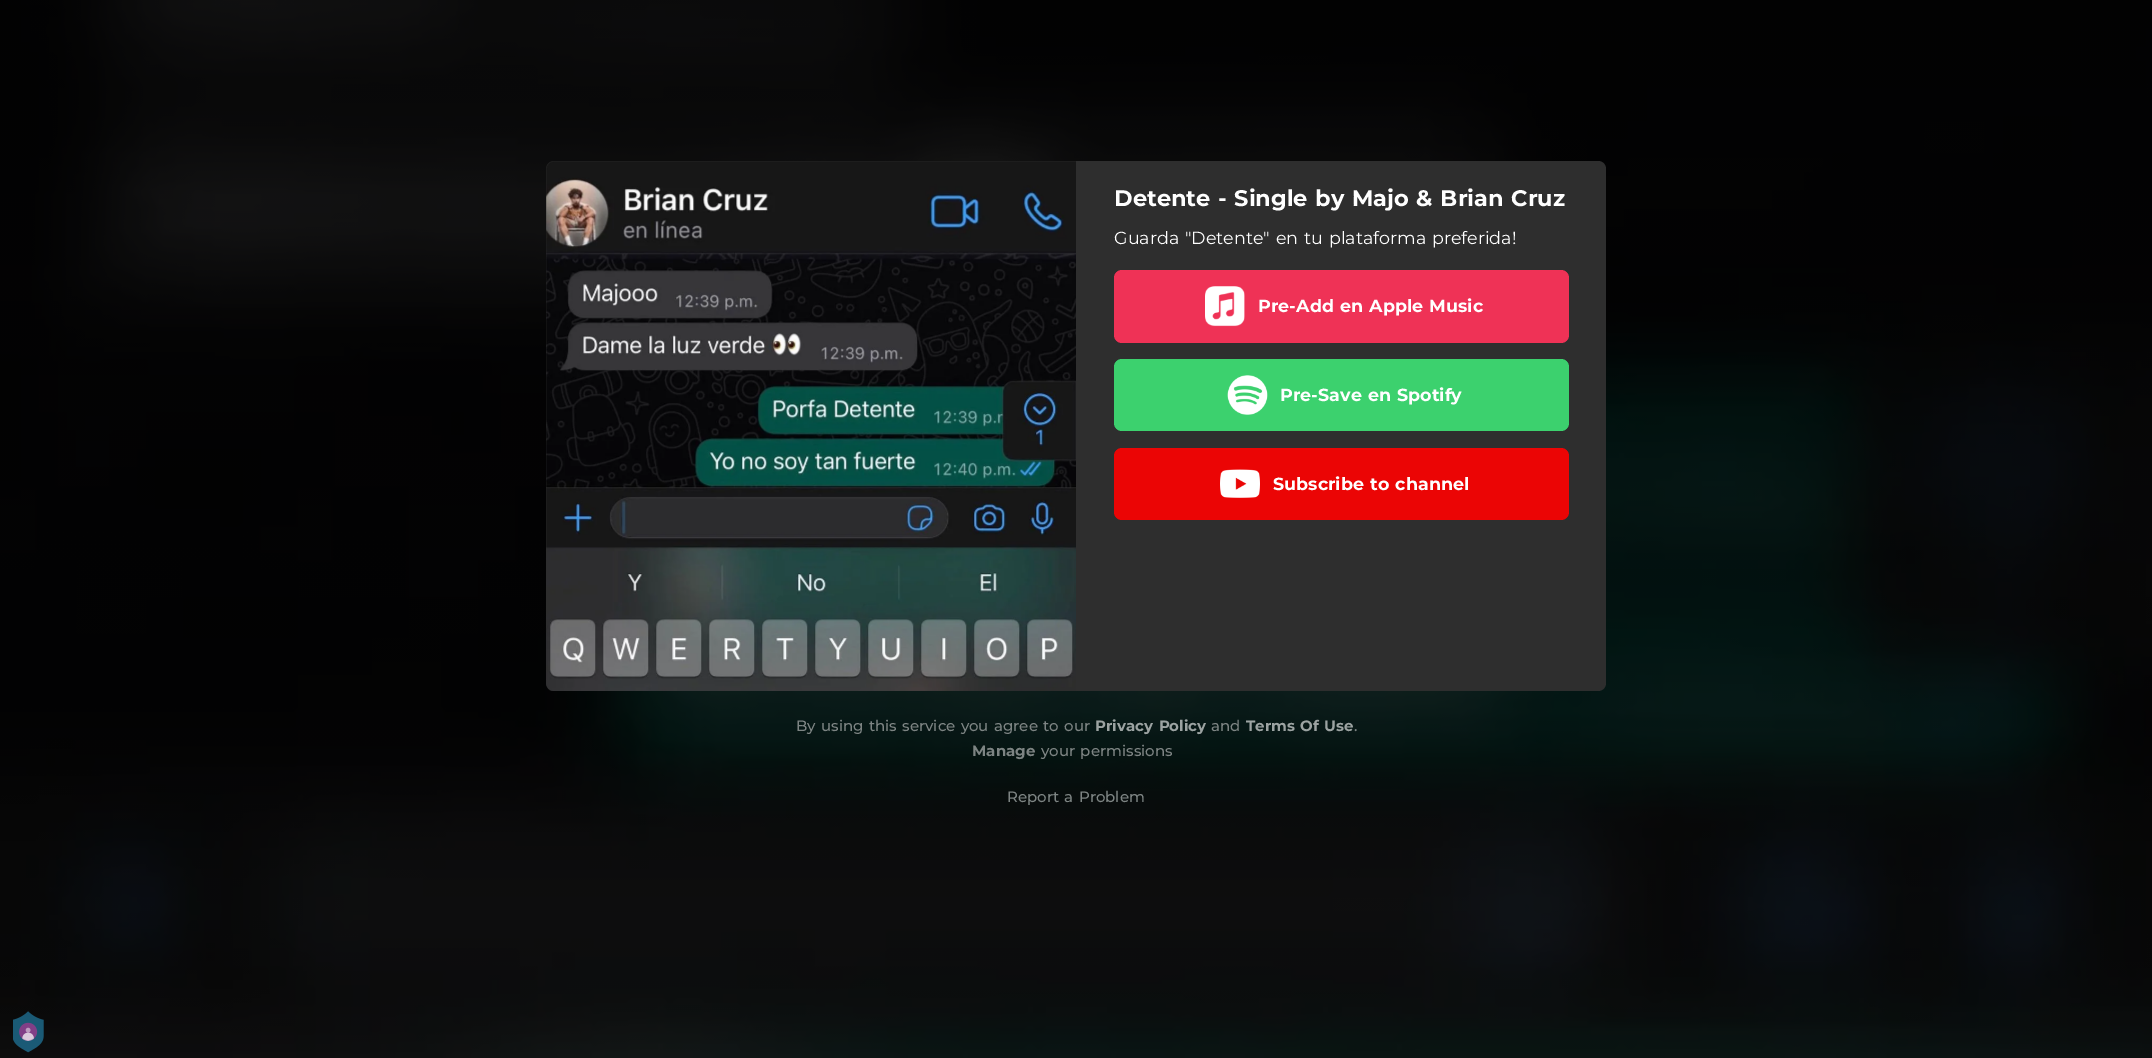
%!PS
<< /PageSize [2152 1058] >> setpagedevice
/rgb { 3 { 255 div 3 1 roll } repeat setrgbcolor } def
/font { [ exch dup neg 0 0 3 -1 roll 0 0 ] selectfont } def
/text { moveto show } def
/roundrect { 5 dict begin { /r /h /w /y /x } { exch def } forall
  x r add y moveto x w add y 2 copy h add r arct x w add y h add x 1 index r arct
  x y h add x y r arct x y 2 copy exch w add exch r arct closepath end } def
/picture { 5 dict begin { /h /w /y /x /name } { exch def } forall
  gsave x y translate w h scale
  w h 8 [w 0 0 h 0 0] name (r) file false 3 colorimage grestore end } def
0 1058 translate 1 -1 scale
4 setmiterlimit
255 255 255 rgb
0 0 2152 1058 rectfill
(img_01.rgb) 0 0 2152 1058 picture
47 47 47 rgb
554 161 moveto 522 0 rlineto 0 530 rlineto -522 0 rlineto -4.5 0 -8 -3.5 -8 -8 rcurveto 0 -514 rlineto 0 -4.5 3.5 -8 8 -8 rcurveto closepath fill
(img_02.rgb) 546 161 530 530 picture
46 46 46 rgb
1076 161 moveto 522 0 rlineto 4.5 0 8 3.5 8 8 rcurveto 0 514 rlineto 0 4.5 -3.5 8 -8 8 rcurveto -522 0 rlineto closepath fill
239 50 86 rgb
1114 270 455 73 8 roundrect fill
(img_03.rgb) 1205 286 40 41 picture
60 209 110 rgb
1114 359 455 72 8 roundrect fill
(img_04.rgb) 1227 375 41 40 picture
235 5 5 rgb
1114 448 455 72 8 roundrect fill
(img_05.rgb) 1220 469 40 29 picture
(img_06.rgb) 13 1011 31 42 picture
/Montserrat-Bold 22.5 font
255 255 255 rgb
1114 206 moveto 1.25 0 32 (Detente - Single by Majo & Brian Cruz) widthshow
/Montserrat-Regular 17.5 font
1114 244 moveto 1.25 0 32 (Guarda "Detente" en tu plataforma preferida!) widthshow
/Montserrat-Bold 17.5 font
1258 312 moveto 1.25 0 32 (Pre-Add en Apple Music) widthshow
1280 401 moveto 1.25 0 32 (Pre-Save en Spotify) widthshow
1273 490 moveto 1.25 0 32 (Subscribe to channel) widthshow
/Montserrat-Medium 15 font
125 132 131 rgb
796 731 moveto 1.25 0 32 (By using this service you agree to our) widthshow
/Montserrat-Bold 15 font
156 163 162 rgb
1095 731 moveto 1.25 0 32 (Privacy Policy) widthshow
/Montserrat-Medium 15 font
125 132 131 rgb
(and) 1211 731 text
/Montserrat-Bold 15 font
156 163 162 rgb
1246 731 moveto 1.25 0 32 (Terms Of Use) widthshow
/Montserrat-Medium 15 font
125 132 131 rgb
(.) 1354 731 text
/Montserrat-Bold 15 font
(Manage) 972 756 text
/Montserrat-Medium 15 font
1041 756 moveto 1.25 0 32 (your permissions) widthshow
1007 802 moveto 1.25 0 32 (Report a Problem) widthshow
showpage
